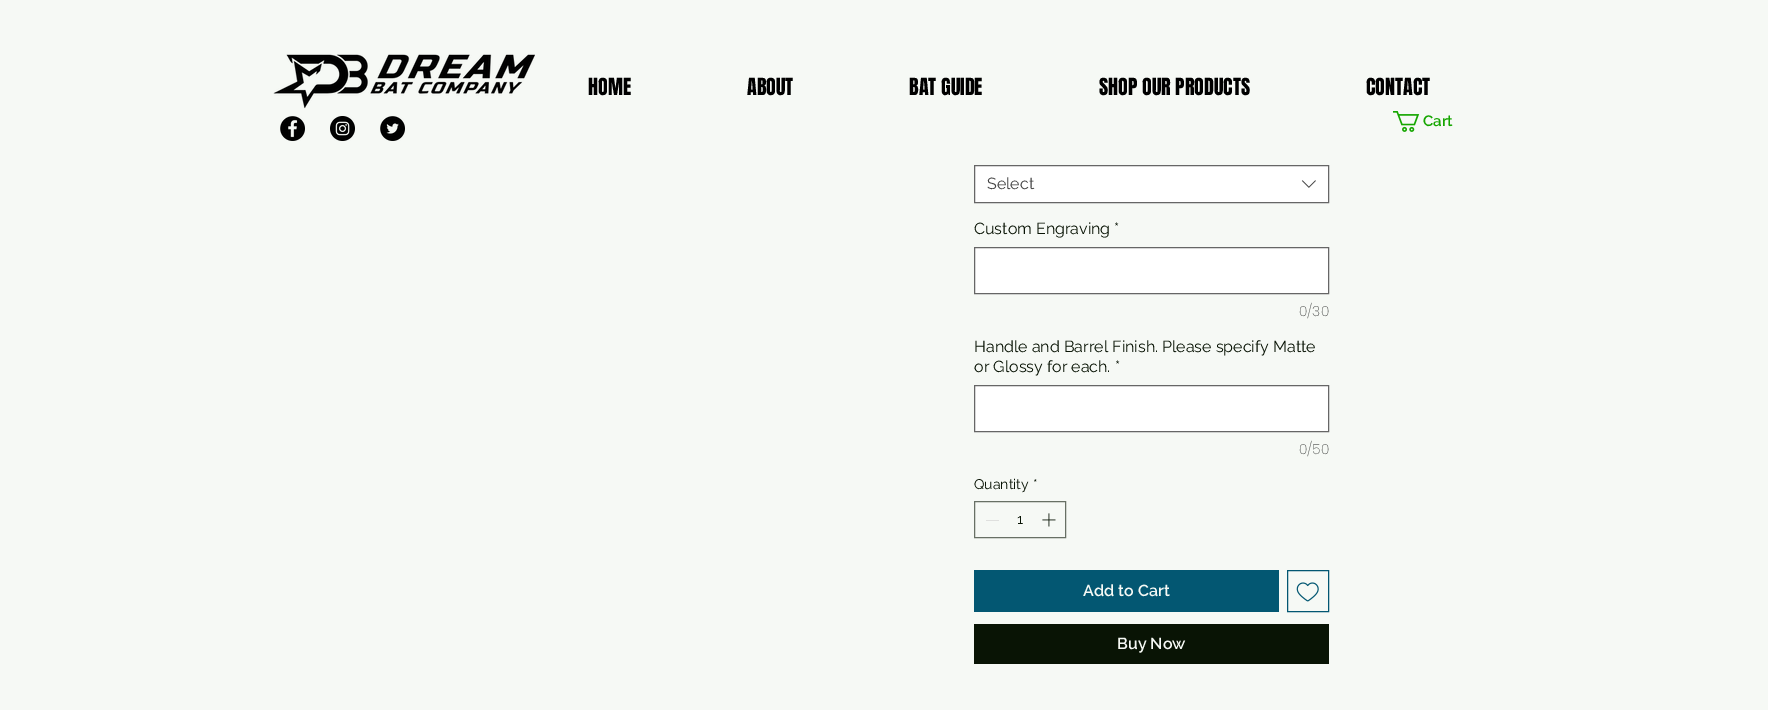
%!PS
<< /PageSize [1768 710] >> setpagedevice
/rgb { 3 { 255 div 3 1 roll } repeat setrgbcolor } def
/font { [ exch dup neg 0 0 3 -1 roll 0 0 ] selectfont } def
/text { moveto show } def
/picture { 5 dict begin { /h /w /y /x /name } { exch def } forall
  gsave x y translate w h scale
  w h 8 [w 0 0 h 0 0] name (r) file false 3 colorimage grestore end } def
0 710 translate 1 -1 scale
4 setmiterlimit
246 249 245 rgb
0 0 1768 710 rectfill
(img_01.rgb) 273 54 262 55 picture
(img_02.rgb) 280 116 25 25 picture
(img_03.rgb) 330 116 25 25 picture
(img_04.rgb) 380 116 25 25 picture
(img_05.rgb) 1393 111 27 21 picture
255 255 255 rgb
974.5 165.5 moveto 354 0 rlineto 0 37 rlineto -354 0 rlineto closepath gsave fill grestore
102 102 102 rgb
stroke
(img_06.rgb) 1301 180 15 8 picture
255 255 255 rgb
974.5 247.5 moveto 354 0 rlineto 0 46 rlineto -354 0 rlineto closepath gsave fill grestore
102 102 102 rgb
stroke
255 255 255 rgb
974.5 385.5 moveto 354 0 rlineto 0 46 rlineto -354 0 rlineto closepath gsave fill grestore
102 102 102 rgb
stroke
104 112 101 rgb
974.5 501.5 91 36 rectstroke
223 224 222 rgb
986 520 13 1 rectfill
(img_07.rgb) 1042 513 14 14 picture
3 87 114 rgb
974 570 305 42 rectfill
1287.5 570.5 41 41 rectstroke
(img_08.rgb) 1296 582 23 20 picture
9 20 5 rgb
974 624 355 40 rectfill
/Anton-Regular 20 font
0 0 0 rgb
(HOME) 588 95 text
(ABOUT) 747 95 text
(BAT GUIDE) 909 95 text
(SHOP OUR PRODUCTS) 1099 95 text
(CONTACT) 1366 95 text
/Raleway-SemiBold 15 font
21 166 0 rgb
(Cart) 1423 126 text
/Raleway-Regular 16 font
68 68 68 rgb
(Select) 987 189 text
9 20 5 rgb
(Custom Engraving *) 974 234 text
/Poppins-ExtraLight 14 font
98 100 98 rgb
(0/30) 1299 316 text
/Raleway-Regular 16 font
9 20 5 rgb
(Handle and Barrel Finish. Please specify Matte) 974 352 text
(or Glossy for each. *) 974 372 text
/Poppins-ExtraLight 14 font
98 100 98 rgb
(0/50) 1299 454 text
/Raleway-Regular 14 font
9 20 5 rgb
(Quantity) 974 489 text
(*) 1033 489 text
(1) 1017 524 text
/Raleway-SemiBold 16 font
246 249 245 rgb
(Add to Cart) 1083 596 text
(Buy Now) 1117 649 text
showpage
